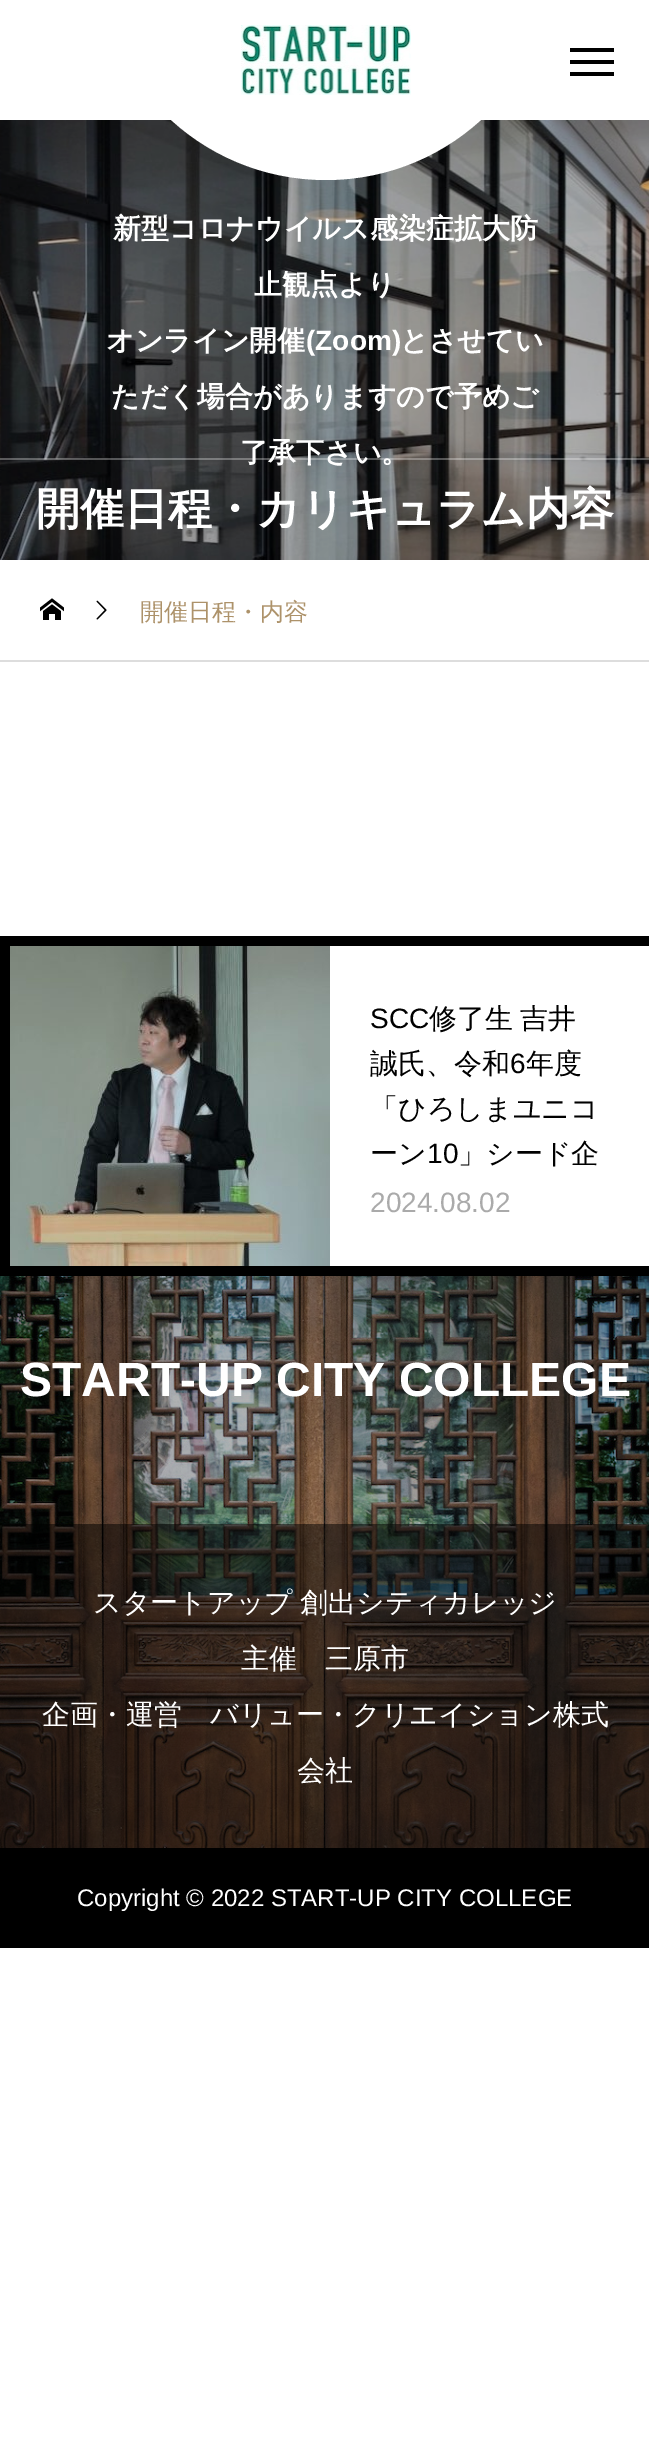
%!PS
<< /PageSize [649 2450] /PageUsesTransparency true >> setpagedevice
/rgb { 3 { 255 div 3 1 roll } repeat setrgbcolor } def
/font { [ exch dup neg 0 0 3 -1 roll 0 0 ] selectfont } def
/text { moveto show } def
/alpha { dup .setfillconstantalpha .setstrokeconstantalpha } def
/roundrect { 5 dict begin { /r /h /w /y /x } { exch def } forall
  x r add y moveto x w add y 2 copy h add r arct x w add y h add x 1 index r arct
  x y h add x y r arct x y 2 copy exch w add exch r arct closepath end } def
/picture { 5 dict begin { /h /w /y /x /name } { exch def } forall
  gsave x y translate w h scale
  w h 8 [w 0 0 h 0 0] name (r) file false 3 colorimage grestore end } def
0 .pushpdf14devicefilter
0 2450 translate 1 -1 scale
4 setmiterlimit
255 255 255 rgb
0 0 649 2450 rectfill
(img_02.rgb) 0 120 649 440 picture
96 -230 460 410 230 roundrect fill
(img_01.rgb) 241 25 170 70 picture
0 0 0 rgb
570 48 44 4 rectfill
570 60 44 4 rectfill
570 72 44 4 rectfill
221 221 221 rgb
0 660 649 2 rectfill
(img_03.rgb) 40 598 24 22 picture
(img_04.rgb) 96 600 11 20 picture
0 0 0 rgb
0 936 649 340 rectfill
255 255 255 rgb
330 946 319 320 rectfill
(img_05.rgb) 10 946 320 320 picture
(img_06.rgb) 0 1276 649 572 picture
0.5 alpha
0 0 0 rgb
0 1524 649 324 rectfill
1 alpha
0 1848 649 100 rectfill
/WenQuanYiZenHei-Bold 28 font
255 255 255 rgb
(新型コロナウイルス感染症拡大防) 113 238 text
(止観点より) 254 294 text
(オンライン開催) 106 350 text
/LiberationSans-Bold 28 font
(\(Zoom\)) 306 350 text
/WenQuanYiZenHei-Bold 28 font
(とさせてい) 400 350 text
(ただく場合がありますので予めご) 111 406 text
(了承下さい。) 240 462 text
0.3 alpha
0 458 649 2 rectfill
/WenQuanYiZenHei-Bold 44 font
1 alpha
(開催日程・カリキュラム内容) 36 524 text
/WenQuanYiZenHei-Medium 24 font
173 146 106 rgb
(開催日程・内容) 140 620 text
/LiberationSans-Regular 28 font
0 0 0 rgb
(SCC) 370 1028 text
/WenQuanYiZenHei-Medium 28 font
429 1028 moveto -1 0 32 (修了生 吉井) widthshow
(誠氏、令和) 370 1073 text
/LiberationSans-Regular 28 font
(6) 510 1073 text
/WenQuanYiZenHei-Medium 28 font
(年度) 526 1073 text
(「ひろしまユニコ) 370 1118 text
(ーン) 370 1163 text
/LiberationSans-Regular 28 font
(10) 427 1163 text
/WenQuanYiZenHei-Medium 28 font
(」シード企) 458 1163 text
/LiberationSans-Regular 28 font
170 170 170 rgb
(2024.08.02) 370 1212 text
/LiberationSans-Bold 48 font
255 255 255 rgb
(START-UP CITY COLLEGE) 20 1396 text
/WenQuanYiZenHei-Medium 28 font
93 1612 moveto -1 0 32 (スタートアップ 創出シティカレッジ) widthshow
(主催　三原市) 241 1668 text
(企画・運営　バリュー・クリエイション株式) 42 1724 text
(会社) 297 1780 text
/LiberationSans-Regular 24 font
(Copyright © 2022 START-UP CITY COLLEGE) 77 1906 text
.poppdf14devicefilter showpage
